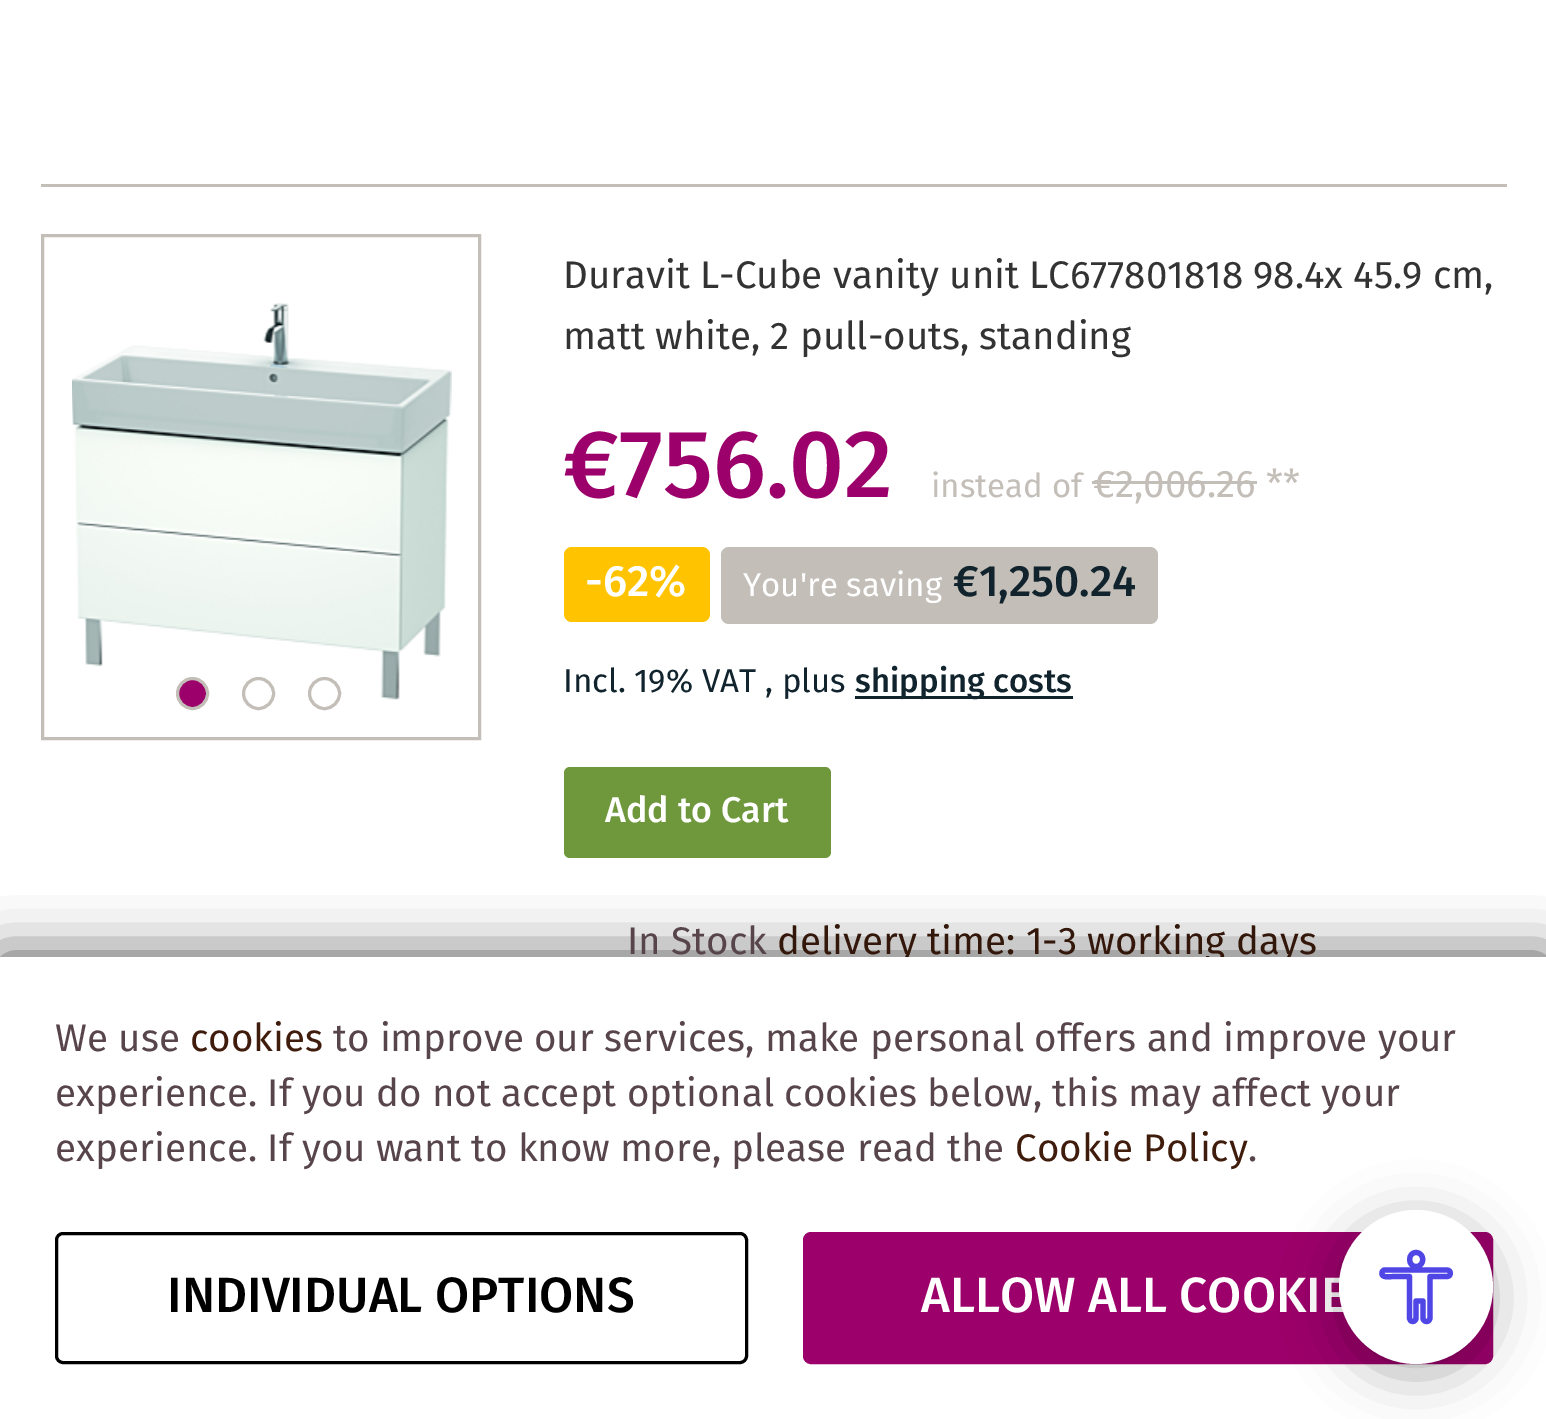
%!PS
<< /PageSize [1546 1419] /PageUsesTransparency true >> setpagedevice
/rgb { 3 { 255 div 3 1 roll } repeat setrgbcolor } def
/font { [ exch dup neg 0 0 3 -1 roll 0 0 ] selectfont } def
/text { moveto show } def
/alpha { dup .setfillconstantalpha .setstrokeconstantalpha } def
/circle { newpath 0 360 arc closepath } def
/roundrect { 5 dict begin { /r /h /w /y /x } { exch def } forall
  x r add y moveto x w add y 2 copy h add r arct x w add y h add x 1 index r arct
  x y h add x y r arct x y 2 copy exch w add exch r arct closepath end } def
/shadow { 12 dict begin { /a /b /q /h /w /y /x } { exch def } forall gsave /was 0 def
  9 -2 -9 { dup b mul 4 div /e exch def 1 sub .425 mul 2.718 exch exp 1 add a .99 .min exch div /now exch def
    1 1 now sub 1 was sub div sub alpha /was now def
    w h .min e 2 mul add 0 gt { x e sub y e sub w e 2 mul add h e 2 mul add
      q e add b .6 mul add w h .min 2 div e add .min 0 .max roundrect fill } if } for grestore end } def
/picture { 5 dict begin { /h /w /y /x /name } { exch def } forall
  gsave x y translate w h scale
  w h 8 [w 0 0 h 0 0] name (r) file false 3 colorimage grestore end } def
0 .pushpdf14devicefilter
0 1419 translate 1 -1 scale
4 setmiterlimit
255 255 255 rgb
0 0 1546 1419 rectfill
195 190 184 rgb
41 184 1466 3 rectfill
3 setlinewidth
42.5 235.5 437 503 rectstroke
(img_01.rgb) 72 303 380 397 picture
156 0 106 rgb
192.5 693.5 15 circle gsave fill grestore
195 190 184 rgb
stroke
258.5 693.5 15 circle stroke
324.5 693.5 15 circle stroke
1092 481 165 3 rectfill
255 195 0 rgb
564 547 146 75 8 roundrect fill
195 190 184 rgb
721 547 437 77 8 roundrect fill
17 36 45 rgb
855 696 218 3 rectfill
111 152 60 rgb
564 767 267 91 6 roundrect fill
1 1 1 rgb
0 957 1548 462 0 27.5 0.7 shadow
/FiraSans-Regular 38.5 font
51 51 51 rgb
(Duravit L-Cube vanity unit LC677801818 98.4x 45.9 cm,) 563 288 text
(matt white, 2 pull-outs, standing) 563 349 text
/FiraSans-Medium 96 font
156 0 106 rgb
(€756.02) 563 497 text
/FiraSans-Regular 33 font
195 190 184 rgb
(instead of) 931 497 text
/FiraSans-Regular 38.5 font
(€2,006.26 **) 1093 497 text
/FiraSans-Medium 44 font
255 255 255 rgb
(-62%) 585 596 text
/FiraSans-Regular 33 font
(You're saving) 743 596 text
/FiraSans-Medium 44 font
17 36 45 rgb
(€1,250.24) 953 596 text
/FiraSans-Regular 33 font
(Incl. 19% VAT , plus) 563 692 text
/FiraSans-Medium 33 font
(shipping costs) 855 692 text
/FiraSans-Medium 35.75 font
255 255 255 rgb
(Add to Cart) 605 822 text
/FiraSans-Regular 38.5 font
87 69 75 rgb
(In Stock) 627 954 text
51 23 10 rgb
(delivery time: 1-3 working days) 777 954 text
255 255 255 rgb
0 957 1546 462 rectfill
87 69 75 rgb
(We use) 55 1051 text
64 28 12 rgb
(cookies) 190 1051 text
87 69 75 rgb
(to improve our services, make personal offers and improve your) 333 1051 text
(experience. If you do not accept optional cookies below, this may affect your) 55 1106 text
(experience. If you want to know more, please read the) 55 1161 text
64 28 12 rgb
(Cookie Policy) 1015 1161 text
87 69 75 rgb
(.) 1248 1161 text
0 0 0 rgb
56.5 1233.5 690 129 6.5 roundrect stroke
/FiraSans-Medium 49.5 font
(INDIVIDUAL OPTIONS) 167 1312 text
156 0 106 rgb
804.5 1233.5 687 129 6.5 roundrect gsave fill grestore
stroke
255 255 255 rgb
(ALLOW ALL COOKIE) 921 1312 text
0 0 0 rgb
1339 1221 154 154 77 27.5 0.3 shadow
255 255 255 rgb
1416 1287 77 circle fill
79 70 229 rgb
5.2 setlinewidth
1 setlinecap
1 setlinejoin
1416 1252.5 moveto 9 0 9 14 0 14 rcurveto -8.5 0 -8.5 -14 0 -14 rcurveto closepath 1447 1276.5 moveto -17 0 rlineto 0 42 rlineto -1 2 rlineto -2 2 -5.5 1 -6 -2 rcurveto 0 -17.5 rlineto -7 0 rlineto 0 17.5 rlineto -0.5 3 -3.5 4 -5.5 2 rcurveto -1 -2 rlineto 0 -42 rlineto -16 0 rlineto -2.5 0 -13 2 -11.5 -4 rcurveto 0 -1 1 -2 2 -2.5 rcurveto 63 0 rlineto 4.5 0 4.5 6.5 0 6.5 rcurveto closepath stroke
.poppdf14devicefilter showpage
